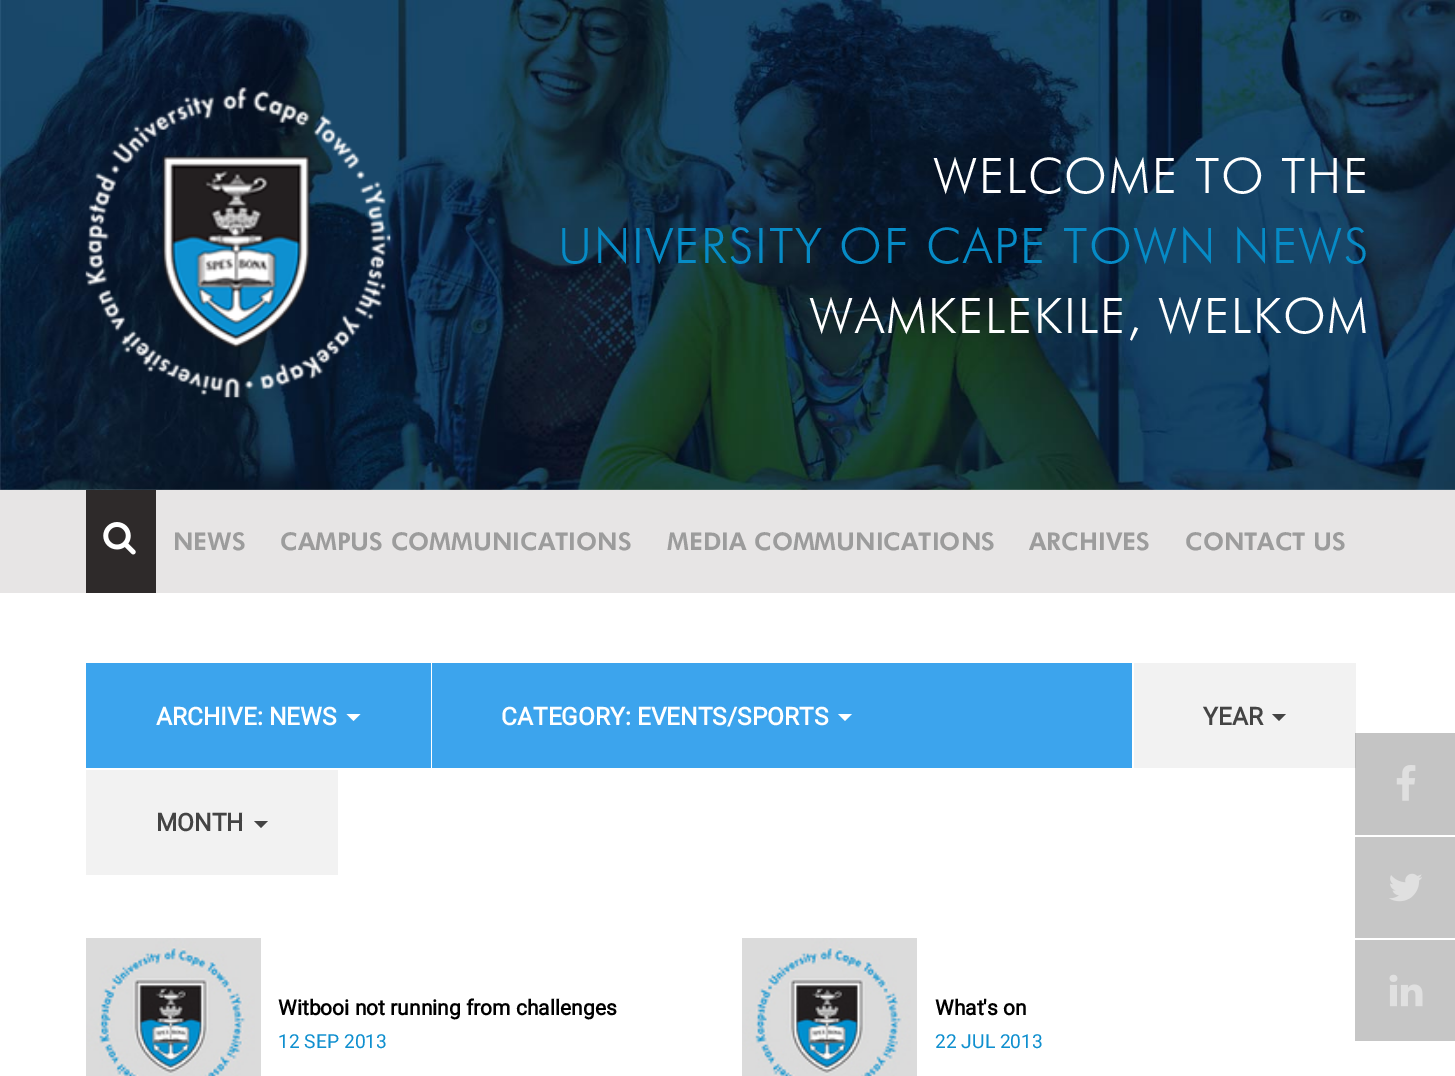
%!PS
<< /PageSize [1455 1076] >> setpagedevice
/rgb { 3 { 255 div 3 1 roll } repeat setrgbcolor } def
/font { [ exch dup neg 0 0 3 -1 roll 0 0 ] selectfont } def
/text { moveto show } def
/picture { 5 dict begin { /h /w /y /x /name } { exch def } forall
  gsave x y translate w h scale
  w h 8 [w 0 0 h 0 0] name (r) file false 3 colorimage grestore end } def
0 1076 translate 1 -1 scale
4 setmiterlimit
255 255 255 rgb
0 0 1455 1076 rectfill
196 196 196 rgb
1355 733 100 102 rectfill
(img_01.rgb) 0 0 1455 490 picture
(img_02.rgb) 85 87 306 311 picture
231 229 229 rgb
0 490 1455 103 rectfill
46 42 42 rgb
86 490 70 103 rectfill
(img_03.rgb) 103 522 33 33 picture
60 164 237 rgb
86 663 345 105 rectfill
255 255 255 rgb
346.5 714 moveto 14 0 rlineto -7 7 rlineto closepath fill
60 164 237 rgb
432 663 700 105 rectfill
255 255 255 rgb
838 714 moveto 14 0 rlineto -7 7 rlineto closepath fill
242 242 242 rgb
1134 663 222 105 rectfill
186 186 186 rgb
1355 733 1 35 rectfill
68 68 68 rgb
1272 714 moveto 14 0 rlineto -7 7 rlineto closepath fill
242 242 242 rgb
86 770 252 105 rectfill
68 68 68 rgb
254 821 moveto 14 0 rlineto -7 7 rlineto closepath fill
(img_04.rgb) 86 938 175 138 picture
(img_05.rgb) 742 938 175 138 picture
(img_06.rgb) 1396 765 20 36 picture
198 198 198 rgb
1355 837 100 101 rectfill
(img_07.rgb) 1389 873 33 29 picture
1355 940 100 101 rectfill
(img_08.rgb) 1389 974 34 33 picture
/Futura-Light 49 font
255 255 255 rgb
933 193 moveto 1.75 0 (WELCOME TO THE) ashow
6 139 198 rgb
558 263 moveto 1.75 0 (UNIVERSITY OF CAPE TOWN NEWS) ashow
255 255 255 rgb
809 333 moveto 1.75 0 (WAMKELEKILE, WELKOM) ashow
/Futura-Black 24.5 font
156 156 156 rgb
(NEWS) 173 550 text
(CAMPUS COMMUNICATIONS) 280 550 text
(MEDIA COMMUNICATIONS) 667 550 text
(ARCHIVES) 1029 550 text
(CONTACT US) 1185 550 text
/Roboto-Bold 24.5 font
255 255 255 rgb
(ARCHIVE: NEWS) 156 725 text
(CATEGORY: EVENTS/SPORTS) 501 725 text
68 68 68 rgb
(YEAR) 1203 725 text
(MONTH) 156 831 text
/Roboto-Bold 21 font
0 0 0 rgb
(Witbooi not running from challenges) 278 1015 text
/Roboto-Regular 19.25 font
14 143 207 rgb
(12 SEP 2013) 278 1048 text
/Roboto-Bold 21 font
0 0 0 rgb
(What's on) 935 1015 text
/Roboto-Regular 19.25 font
14 143 207 rgb
(22 JUL 2013) 935 1048 text
showpage
